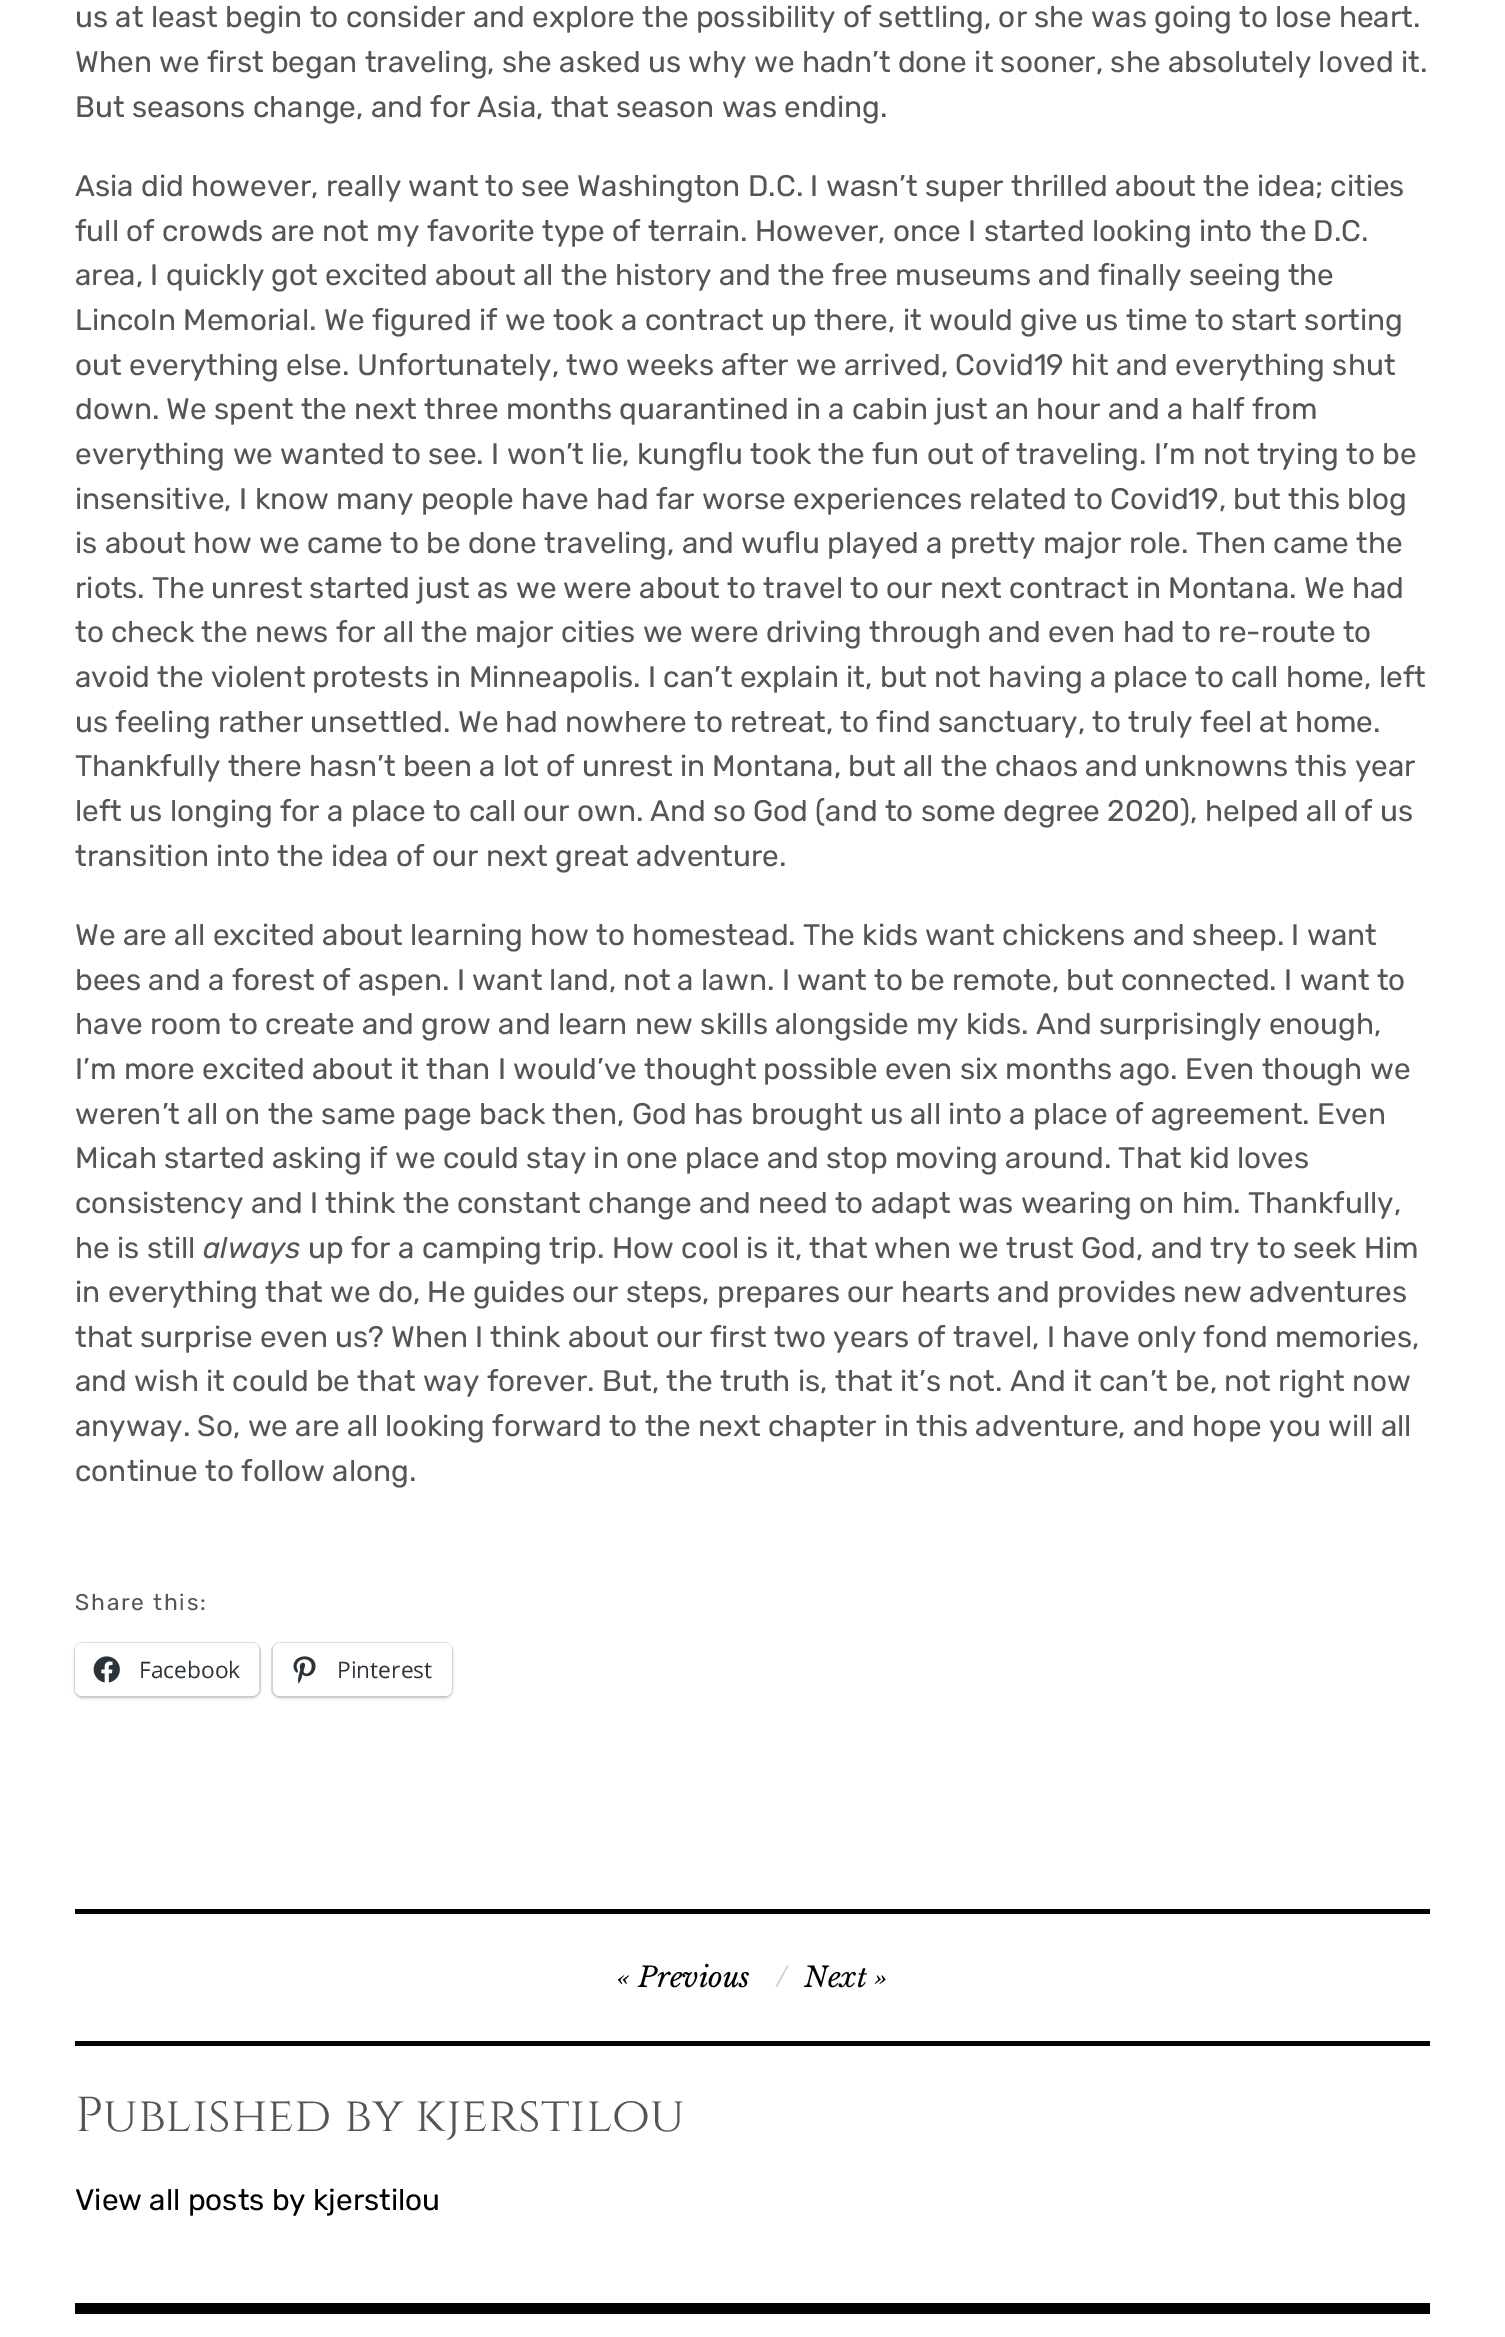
%!PS
<< /PageSize [1505 2337] /PageUsesTransparency true >> setpagedevice
/rgb { 3 { 255 div 3 1 roll } repeat setrgbcolor } def
/font { [ exch dup neg 0 0 3 -1 roll 0 0 ] selectfont } def
/text { moveto show } def
/alpha { dup .setfillconstantalpha .setstrokeconstantalpha } def
/roundrect { 5 dict begin { /r /h /w /y /x } { exch def } forall
  x r add y moveto x w add y 2 copy h add r arct x w add y h add x 1 index r arct
  x y h add x y r arct x y 2 copy exch w add exch r arct closepath end } def
/shadow { 12 dict begin { /a /b /q /h /w /y /x } { exch def } forall gsave /was 0 def
  9 -2 -9 { dup b mul 4 div /e exch def 1 sub .425 mul 2.718 exch exp 1 add a .99 .min exch div /now exch def
    1 1 now sub 1 was sub div sub alpha /was now def
    w h .min e 2 mul add 0 gt { x e sub y e sub w e 2 mul add h e 2 mul add
      q e add b .6 mul add w h .min 2 div e add .min 0 .max roundrect fill } if } for grestore end } def
/picture { 5 dict begin { /h /w /y /x /name } { exch def } forall
  gsave x y translate w h scale
  w h 8 [w 0 0 h 0 0] name (r) file false 3 colorimage grestore end } def
0 .pushpdf14devicefilter
0 2337 translate 1 -1 scale
4 setmiterlimit
255 255 255 rgb
0 0 1505 2337 rectfill
224 224 224 rgb
2 setlinewidth
75 1643 185 54 8 roundrect stroke
0 0 0 rgb
75 1645 184 53 7 2 0.12 shadow
255 255 255 rgb
75 1643 184 53 7 roundrect fill
(img_01.rgb) 93 1656 27 27 picture
224 224 224 rgb
272 1643 180 54 8 roundrect stroke
0 0 0 rgb
273 1645 179 53 7 2 0.12 shadow
255 255 255 rgb
273 1643 179 53 7 roundrect fill
(img_02.rgb) 293 1656 23 28 picture
0 0 0 rgb
75 1909 1355 5 rectfill
75 2041 1355 5 rectfill
75 2303 1355 11 rectfill
/Rubik-Regular 29.75 font
85 85 85 rgb
(us at least begin to consider and explore the possibility of settling, or she was going to lose heart.) 75 27 text
(When we first began traveling, she asked us why we hadn’t done it sooner, she absolutely loved it.) 75 72 text
(But seasons change, and for Asia, that season was ending.) 75 117 text
(Asia did however, really want to see Washington D.C. I wasn’t super thrilled about the idea; cities) 75 196 text
(full of crowds are not my favorite type of terrain. However, once I started looking into the D.C.) 75 241 text
(area, I quickly got excited about all the history and the free museums and finally seeing the) 75 285 text
(Lincoln Memorial. We figured if we took a contract up there, it would give us time to start sorting) 75 330 text
(out everything else. Unfortunately, two weeks after we arrived, Covid19 hit and everything shut) 75 375 text
(down. We spent the next three months quarantined in a cabin just an hour and a half from) 75 419 text
(everything we wanted to see. I won’t lie, kungflu took the fun out of traveling. I’m not trying to be) 75 464 text
(insensitive, I know many people have had far worse experiences related to Covid19, but this blog) 75 509 text
(is about how we came to be done traveling, and wuflu played a pretty major role. Then came the) 75 553 text
(riots. The unrest started just as we were about to travel to our next contract in Montana. We had) 75 598 text
(to check the news for all the major cities we were driving through and even had to re-route to) 75 642 text
(avoid the violent protests in Minneapolis. I can’t explain it, but not having a place to call home, left) 75 687 text
(us feeling rather unsettled. We had nowhere to retreat, to find sanctuary, to truly feel at home.) 75 732 text
(Thankfully there hasn’t been a lot of unrest in Montana, but all the chaos and unknowns this year) 75 776 text
(left us longing for a place to call our own. And so God \(and to some degree 2020\), helped all of us) 75 821 text
(transition into the idea of our next great adventure.) 75 866 text
(We are all excited about learning how to homestead. The kids want chickens and sheep. I want) 75 945 text
(bees and a forest of aspen. I want land, not a lawn. I want to be remote, but connected. I want to) 75 990 text
(have room to create and grow and learn new skills alongside my kids. And surprisingly enough,) 75 1034 text
(I’m more excited about it than I would’ve thought possible even six months ago. Even though we) 75 1079 text
(weren’t all on the same page back then, God has brought us all into a place of agreement. Even) 75 1124 text
(Micah started asking if we could stay in one place and stop moving around. That kid loves) 75 1168 text
(consistency and I think the constant change and need to adapt was wearing on him. Thankfully,) 75 1213 text
(he is still) 75 1258 text
/Rubik-Italic 29.75 font
(always) 203 1258 text
/Rubik-Regular 29.75 font
(up for a camping trip. How cool is it, that when we trust God, and try to seek Him) 308 1258 text
(in everything that we do, He guides our steps, prepares our hearts and provides new adventures) 75 1302 text
(that surprise even us? When I think about our first two years of travel, I have only fond memories,) 75 1347 text
(and wish it could be that way forever. But, the truth is, that it’s not. And it can’t be, not right now) 75 1391 text
(anyway. So, we are all looking forward to the next chapter in this adventure, and hope you will all) 75 1436 text
(continue to follow along.) 75 1481 text
/Rubik-Regular 22.75 font
75 1610 moveto 1.75 0 (Share this:) ashow
/OpenSans-Regular 22.75 font
44 51 56 rgb
(Facebook) 139 1678 text
(Pinterest) 337 1678 text
/LibreBaskerville-Italic 28 font
0 0 0 rgb
(« Previous) 617 1987 text
204 204 204 rgb
(/) 776 1987 text
0 0 0 rgb
(Next ») 804 1987 text
/Cinzel-Regular 49 font
85 85 85 rgb
(Published by kjerstilou) 75 2131 text
/Rubik-Regular 29.75 font
0 0 0 rgb
(View all posts by kjerstilou) 75 2210 text
.poppdf14devicefilter showpage
